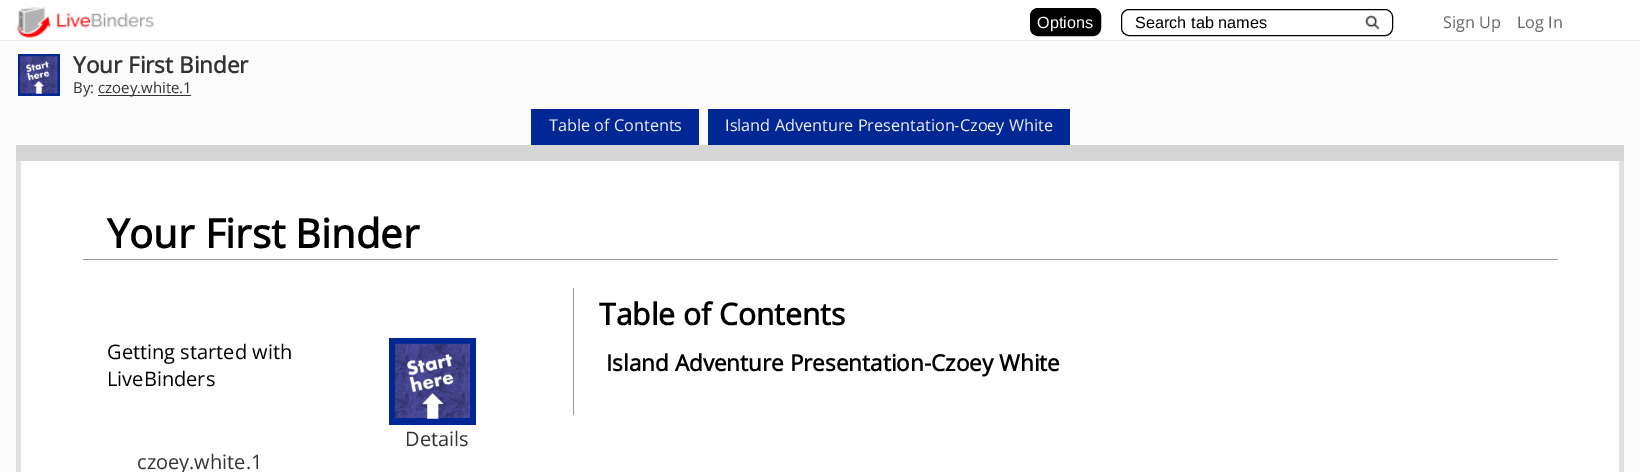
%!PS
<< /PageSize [1640 472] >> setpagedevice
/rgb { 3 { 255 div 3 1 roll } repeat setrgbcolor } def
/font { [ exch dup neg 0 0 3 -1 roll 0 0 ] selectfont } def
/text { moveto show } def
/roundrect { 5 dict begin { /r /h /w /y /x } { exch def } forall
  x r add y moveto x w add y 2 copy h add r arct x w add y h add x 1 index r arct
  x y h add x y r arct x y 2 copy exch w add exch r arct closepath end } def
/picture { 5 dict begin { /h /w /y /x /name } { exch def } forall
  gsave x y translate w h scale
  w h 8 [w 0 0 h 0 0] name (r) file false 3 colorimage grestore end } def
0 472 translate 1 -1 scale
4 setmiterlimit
251 251 251 rgb
0 0 1640 472 rectfill
255 255 255 rgb
0 0 1640 40 rectfill
235 235 235 rgb
0 40 1640 1 rectfill
(img_01.rgb) 17 7 137 31 picture
0 0 0 rgb
1030.5 8.5 70 27 7.5 roundrect gsave fill grestore
stroke
(img_02.rgb) 1365 15 15 15 picture
1121.5 9.5 271 26 7.5 roundrect stroke
0 39 148 rgb
18 54 42 42 rectfill
(img_03.rgb) 20 56 38 38 picture
51 51 51 rgb
98 95 93 1 rectfill
214 214 214 rgb
16 145 1608 16 rectfill
0 39 148 rgb
531 109 168 36 rectfill
708 109 362 36 rectfill
255 255 255 rgb
21 161 1598 311 rectfill
224 224 224 rgb
1619 161 5 311 rectfill
16 161 5 311 rectfill
153 153 153 rgb
83 259 1475 1 rectfill
573 288 1 127 rectfill
0 39 148 rgb
389 338 87 87 rectfill
(img_04.rgb) 395 343 75 76 picture
/LiberationSans-Regular 16.25 font
255 255 255 rgb
(Options) 1037 28 text
0 0 0 rgb
(Search tab names) 1135 28 text
/OpenSans-Regular 16.25 font
102 102 102 rgb
(Sign Up) 1443 28 text
(Log In) 1517 28 text
/OpenSans-Bold 22.5 font
51 51 51 rgb
(Your First Binder) 73 73 text
/OpenSans-Regular 15 font
(By:) 73 93 text
(czoey.white.1) 98 93 text
/OpenSans-Regular 16.25 font
242 242 243 rgb
(Table of Contents) 549 131 text
(Island Adventure Presentation-Czoey White) 725 131 text
/OpenSans-Bold 40 font
0 0 0 rgb
(Your First Binder) 107 248 text
/OpenSans-Bold 30 font
(Table of Contents) 599 325 text
/OpenSans-Regular 20 font
(Getting started with) 107 359 text
(LiveBinders) 107 386 text
51 51 51 rgb
(Details) 405 446 text
(czoey.white.1) 137 469 text
/OpenSans-Bold 22.5 font
0 0 0 rgb
(Island Adventure Presentation-Czoey White) 606 371 text
showpage
